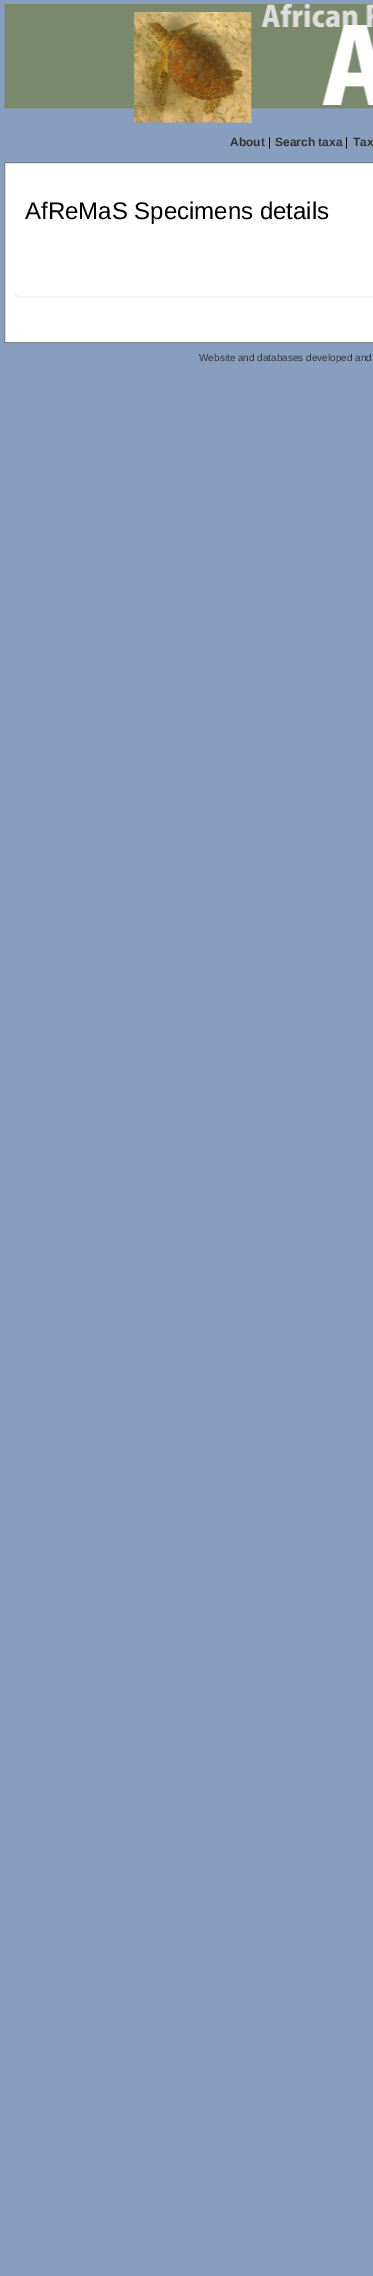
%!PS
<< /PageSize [373 2276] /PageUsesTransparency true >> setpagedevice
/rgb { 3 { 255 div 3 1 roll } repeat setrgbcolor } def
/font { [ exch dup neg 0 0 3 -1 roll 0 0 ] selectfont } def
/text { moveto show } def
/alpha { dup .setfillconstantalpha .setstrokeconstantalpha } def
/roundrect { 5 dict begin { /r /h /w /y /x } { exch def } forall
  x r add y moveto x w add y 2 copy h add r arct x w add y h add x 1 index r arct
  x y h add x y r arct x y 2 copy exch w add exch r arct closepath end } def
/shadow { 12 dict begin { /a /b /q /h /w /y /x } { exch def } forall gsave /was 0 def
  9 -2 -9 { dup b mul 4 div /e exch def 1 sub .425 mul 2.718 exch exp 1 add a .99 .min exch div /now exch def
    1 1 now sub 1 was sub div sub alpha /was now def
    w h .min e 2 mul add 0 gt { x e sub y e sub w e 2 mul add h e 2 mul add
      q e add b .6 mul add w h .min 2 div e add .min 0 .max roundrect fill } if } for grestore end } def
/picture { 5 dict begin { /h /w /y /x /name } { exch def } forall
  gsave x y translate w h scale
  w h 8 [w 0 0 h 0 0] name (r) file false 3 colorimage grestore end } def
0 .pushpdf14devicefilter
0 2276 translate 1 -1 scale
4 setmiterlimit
136 158 190 rgb
0 0 373 2276 rectfill
(img_01.rgb) 4 4 369 119 picture
255 255 255 rgb
4.5 162.5 moveto 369 0 rlineto 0 180 rlineto -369 0 rlineto closepath gsave fill grestore
130 130 130 rgb
stroke
gsave
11 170 moveto 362 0 rlineto 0 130 rlineto -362 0 rlineto closepath 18 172 moveto 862 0 rlineto 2 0 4 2 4 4 rcurveto 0 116 rlineto 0 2 -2 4 -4 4 rcurveto -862 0 rlineto -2 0 -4 -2 -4 -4 rcurveto 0 -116 rlineto 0 -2 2 -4 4 -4 rcurveto closepath eoclip newpath
0 0 0 rgb
14 173 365 124 4 0.5 0.05 shadow
grestore
/LiberationSans-Bold 12 font
51 51 51 rgb
(About) 230 146 text
/LiberationSans-Regular 12 font
0 0 0 rgb
(|) 268 146 text
/LiberationSans-Bold 12 font
51 51 51 rgb
(Search taxa) 275 146 text
/LiberationSans-Regular 12 font
0 0 0 rgb
(|) 345 146 text
/LiberationSans-Bold 12 font
51 51 51 rgb
(Tax) 353 146 text
/LiberationSans-Regular 24 font
0 0 0 rgb
(AfReMaS Specimens details) 25 219 text
/LiberationSans-Regular 10 font
51 51 51 rgb
(Website and databases developed and) 199 361 text
.poppdf14devicefilter showpage
